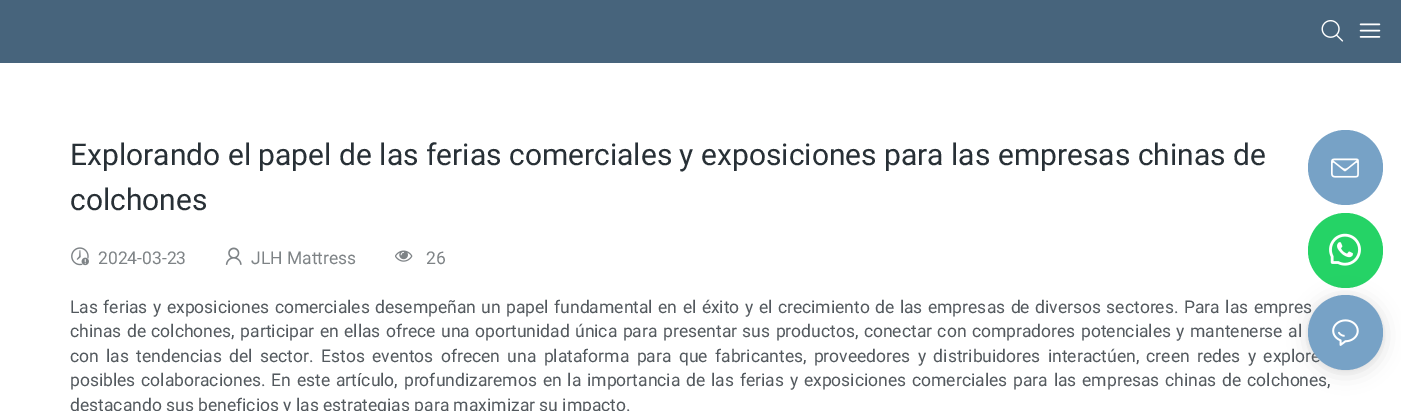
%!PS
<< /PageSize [1401 411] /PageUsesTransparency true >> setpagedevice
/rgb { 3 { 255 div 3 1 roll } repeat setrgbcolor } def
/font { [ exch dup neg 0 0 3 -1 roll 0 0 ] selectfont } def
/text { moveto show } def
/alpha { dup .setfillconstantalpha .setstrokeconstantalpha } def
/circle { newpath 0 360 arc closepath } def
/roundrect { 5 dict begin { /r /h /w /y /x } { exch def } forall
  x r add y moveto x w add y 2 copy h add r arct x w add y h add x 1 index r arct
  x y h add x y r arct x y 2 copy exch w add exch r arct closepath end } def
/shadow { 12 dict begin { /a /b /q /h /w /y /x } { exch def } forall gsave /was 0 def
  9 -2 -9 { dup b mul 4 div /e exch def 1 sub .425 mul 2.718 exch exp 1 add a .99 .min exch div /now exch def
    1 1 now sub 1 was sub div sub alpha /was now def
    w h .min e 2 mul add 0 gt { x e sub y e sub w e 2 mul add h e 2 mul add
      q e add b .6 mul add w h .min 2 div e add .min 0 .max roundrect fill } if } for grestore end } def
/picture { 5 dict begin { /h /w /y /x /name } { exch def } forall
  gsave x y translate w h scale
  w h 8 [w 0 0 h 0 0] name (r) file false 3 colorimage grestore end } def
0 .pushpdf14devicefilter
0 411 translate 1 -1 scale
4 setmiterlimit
255 255 255 rgb
0 0 1401 411 rectfill
71 100 124 rgb
0 0 1401 63 rectfill
(img_01.rgb) 1321 20 23 22 picture
(img_02.rgb) 1359 23 22 15 picture
(img_03.rgb) 71 247 18 19 picture
(img_04.rgb) 225 247 17 18 picture
(img_05.rgb) 395 250 18 12 picture
119 162 198 rgb
1345.5 167.5 37.5 circle fill
(img_06.rgb) 1331 158 28 20 picture
37 211 102 rgb
1345.5 250.5 37.5 circle fill
(img_07.rgb) 1329 233 32 33 picture
0 0 0 rgb
1308 298 75 75 37.5 10 0.12 shadow
1308 296 75 75 37.5 2.5 0.06 shadow
/Roboto-Regular 30 font
40 48 54 rgb
(Explorando el papel de las ferias comerciales y exposiciones para las empresas chinas de) 70 165 text
(colchones) 70 210 text
/Roboto-Regular 17.5 font
126 131 134 rgb
(2024-03-23) 98 264 text
(JLH Mattress) 251 264 text
(26) 426 264 text
83 89 94 rgb
70 313 moveto 1.1 0 32 (Las ferias y exposiciones comerciales desempeñan un papel fundamental en el éxito y el crecimiento de las empresas de diversos sectores. Para las empres) widthshow
70 337 moveto 1.1 0 32 (chinas de colchones, participar en ellas ofrece una oportunidad única para presentar sus productos, conectar con compradores potenciales y mantenerse al) widthshow
70 362 moveto 3 0 32 (con las tendencias del sector. Estos eventos ofrecen una plataforma para que fabricantes, proveedores y distribuidores interactúen, creen redes y explore) widthshow
70 386 moveto 1.5 0 32 (posibles colaboraciones. En este artículo, profundizaremos en la importancia de las ferias y exposiciones comerciales para las empresas chinas de colchones,) widthshow
(destacando sus beneficios y las estrategias para maximizar su impacto.) 70 411 text
119 162 198 rgb
1345.5 332.5 37.5 circle fill
(img_08.rgb) 1332 319 27 27 picture
.poppdf14devicefilter showpage
